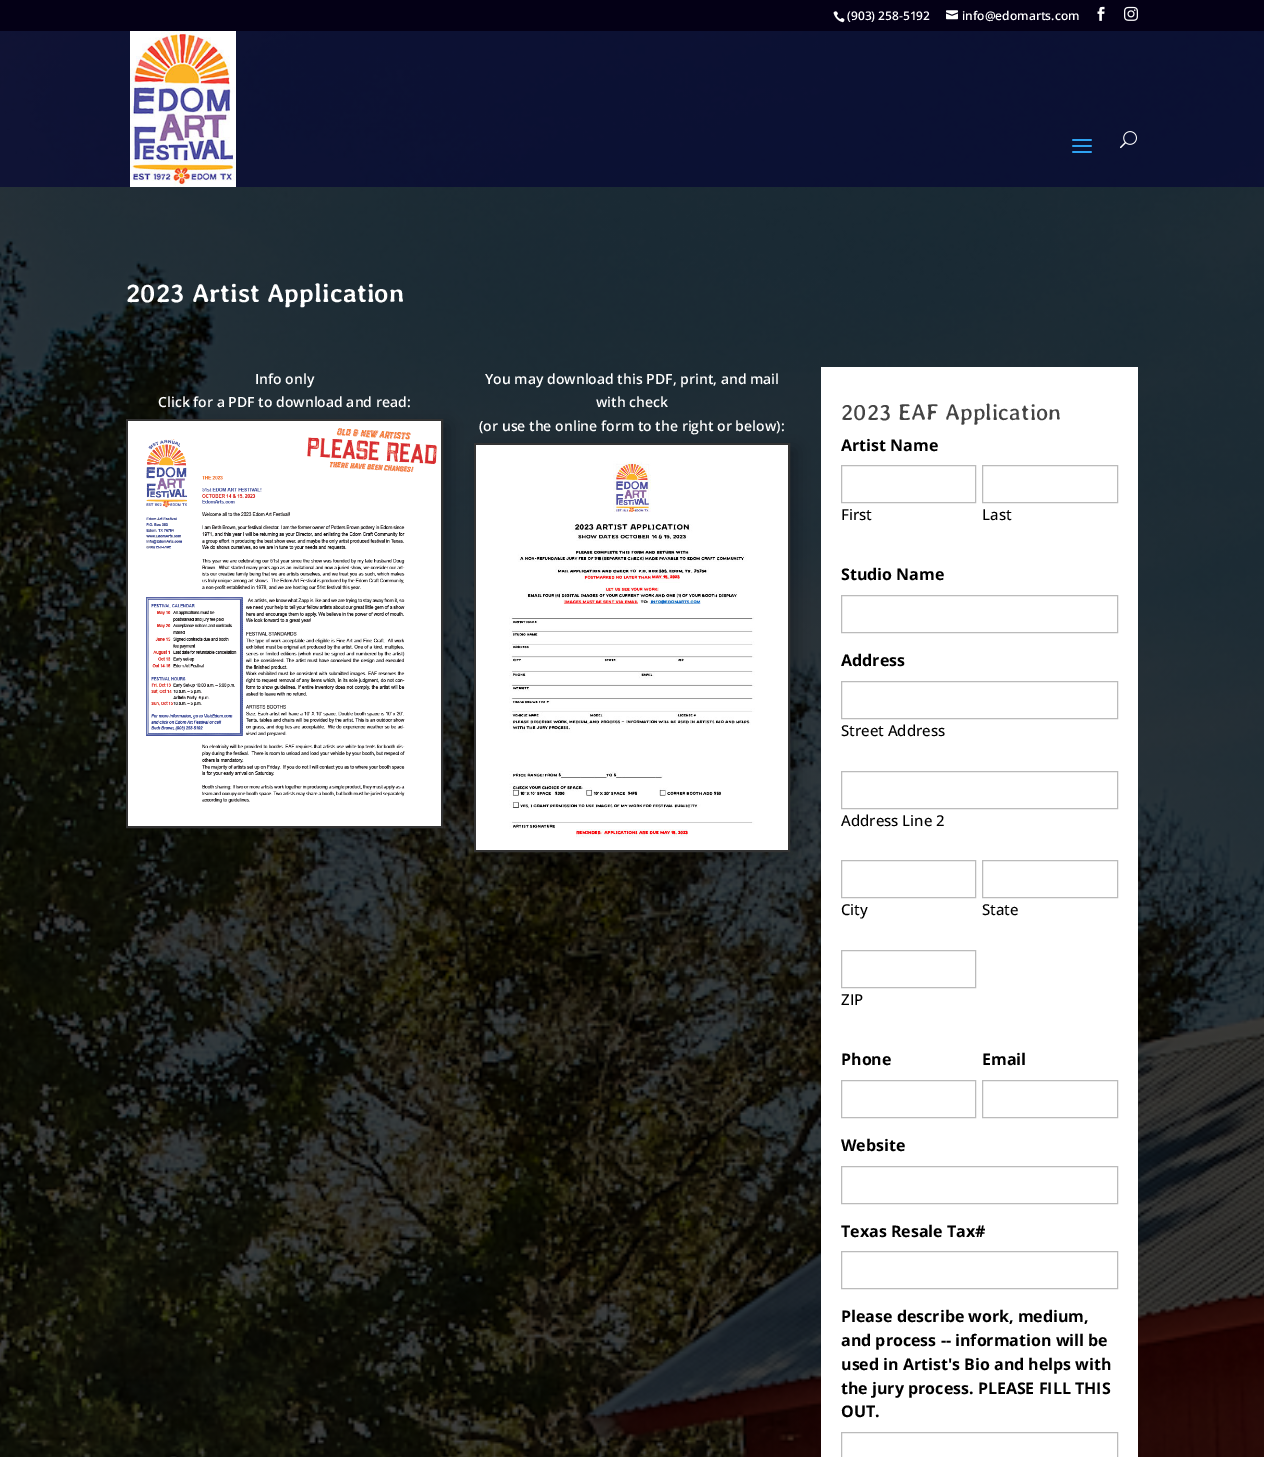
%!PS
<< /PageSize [1264 1457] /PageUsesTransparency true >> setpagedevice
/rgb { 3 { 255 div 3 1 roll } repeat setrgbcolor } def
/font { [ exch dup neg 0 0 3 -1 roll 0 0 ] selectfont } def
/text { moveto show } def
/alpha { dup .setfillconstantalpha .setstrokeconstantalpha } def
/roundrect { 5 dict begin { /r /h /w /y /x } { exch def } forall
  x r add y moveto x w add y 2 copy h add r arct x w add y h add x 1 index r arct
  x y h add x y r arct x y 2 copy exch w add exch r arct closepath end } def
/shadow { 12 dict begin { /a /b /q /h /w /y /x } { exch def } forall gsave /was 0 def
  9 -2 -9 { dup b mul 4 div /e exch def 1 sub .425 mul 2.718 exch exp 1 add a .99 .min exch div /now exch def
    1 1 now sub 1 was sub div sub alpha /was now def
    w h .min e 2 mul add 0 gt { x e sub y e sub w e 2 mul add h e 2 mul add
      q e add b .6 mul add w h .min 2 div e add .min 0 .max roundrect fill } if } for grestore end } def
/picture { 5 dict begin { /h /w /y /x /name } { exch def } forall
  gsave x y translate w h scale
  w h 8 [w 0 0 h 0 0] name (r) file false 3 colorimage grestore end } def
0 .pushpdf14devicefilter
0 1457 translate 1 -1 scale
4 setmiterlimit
255 255 255 rgb
0 0 1264 1457 rectfill
4 0 22 rgb
0 0 1264 31 rectfill
(img_01.rgb) 833 11 12 12 picture
(img_02.rgb) 946 10 12 10 picture
(img_03.rgb) 1097 6 8 15 picture
(img_04.rgb) 1124 6 14 15 picture
(img_08.rgb) 0 31 1264 1426 picture
0.6 alpha
1 0 51 rgb
0 31 1264 156 rectfill
1 alpha
(img_05.rgb) 130 31 106 156 picture
(img_06.rgb) 1072 139 20 14 picture
(img_07.rgb) 1120 131 17 18 picture
0 0 0 rgb
132 425 317 409 0 9 0.3 shadow
51 51 51 rgb
2 setlinewidth
127 420 315 407 rectstroke
(img_09.rgb) 128 421 313 405 picture
0 0 0 rgb
480 449 316 409 0 9 0.3 shadow
51 51 51 rgb
475 444 314 407 rectstroke
(img_10.rgb) 476 445 312 405 picture
255 255 255 rgb
821 367 317 1090 rectfill
187 187 187 rgb
1 setlinewidth
841.5 465.5 134 37 rectstroke
982.5 465.5 135 37 rectstroke
841.5 595.5 276 37 rectstroke
841.5 681.5 276 37 rectstroke
841.5 771.5 276 37 rectstroke
841.5 860.5 134 37 rectstroke
982.5 860.5 135 37 rectstroke
841.5 950.5 134 37 rectstroke
841.5 1080.5 134 37 rectstroke
982.5 1080.5 135 37 rectstroke
841.5 1166.5 276 37 rectstroke
841.5 1251.5 276 37 rectstroke
841.5 1432.5 276 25 rectstroke
/OpenSans-SemiBold 12 font
255 255 255 rgb
(\(903\) 258-5192) 847 20 text
(info@edomarts.com) 962 20 text
/AveriaLibre-Bold 26 font
(2023 Artist Application) 126 302 text
/OpenSans-SemiBold 14 font
(Info only) 255 384 text
(Click for a PDF to download and read:) 158 407 text
(You may download this PDF, print, and mail) 485 384 text
(with check) 596 407 text
(\(or use the online form to the right or below\):) 479 431 text
/AveriaLibre-Regular 23 font
68 68 68 rgb
(2023 EAF Application) 841 420 text
/OpenSans-Bold 16 font
0 0 0 rgb
(Artist Name) 841 451 text
/OpenSans-Medium 15 font
(First) 841 520 text
(Last) 982 520 text
/OpenSans-Bold 16 font
(Studio Name) 841 580 text
(Address) 841 666 text
/OpenSans-Medium 15 font
(Street Address) 841 736 text
(Address Line 2) 841 826 text
(City) 841 915 text
(State) 982 915 text
(ZIP) 841 1005 text
/OpenSans-Bold 16 font
(Phone) 841 1065 text
(Email) 982 1065 text
(Website) 841 1151 text
(Texas Resale Tax#) 841 1237 text
(Please describe work, medium,) 841 1322 text
(and process -- information will be) 841 1346 text
(used in Artist's Bio and helps with) 841 1370 text
(the jury process. PLEASE FILL THIS) 841 1394 text
(OUT.) 841 1417 text
.poppdf14devicefilter showpage
